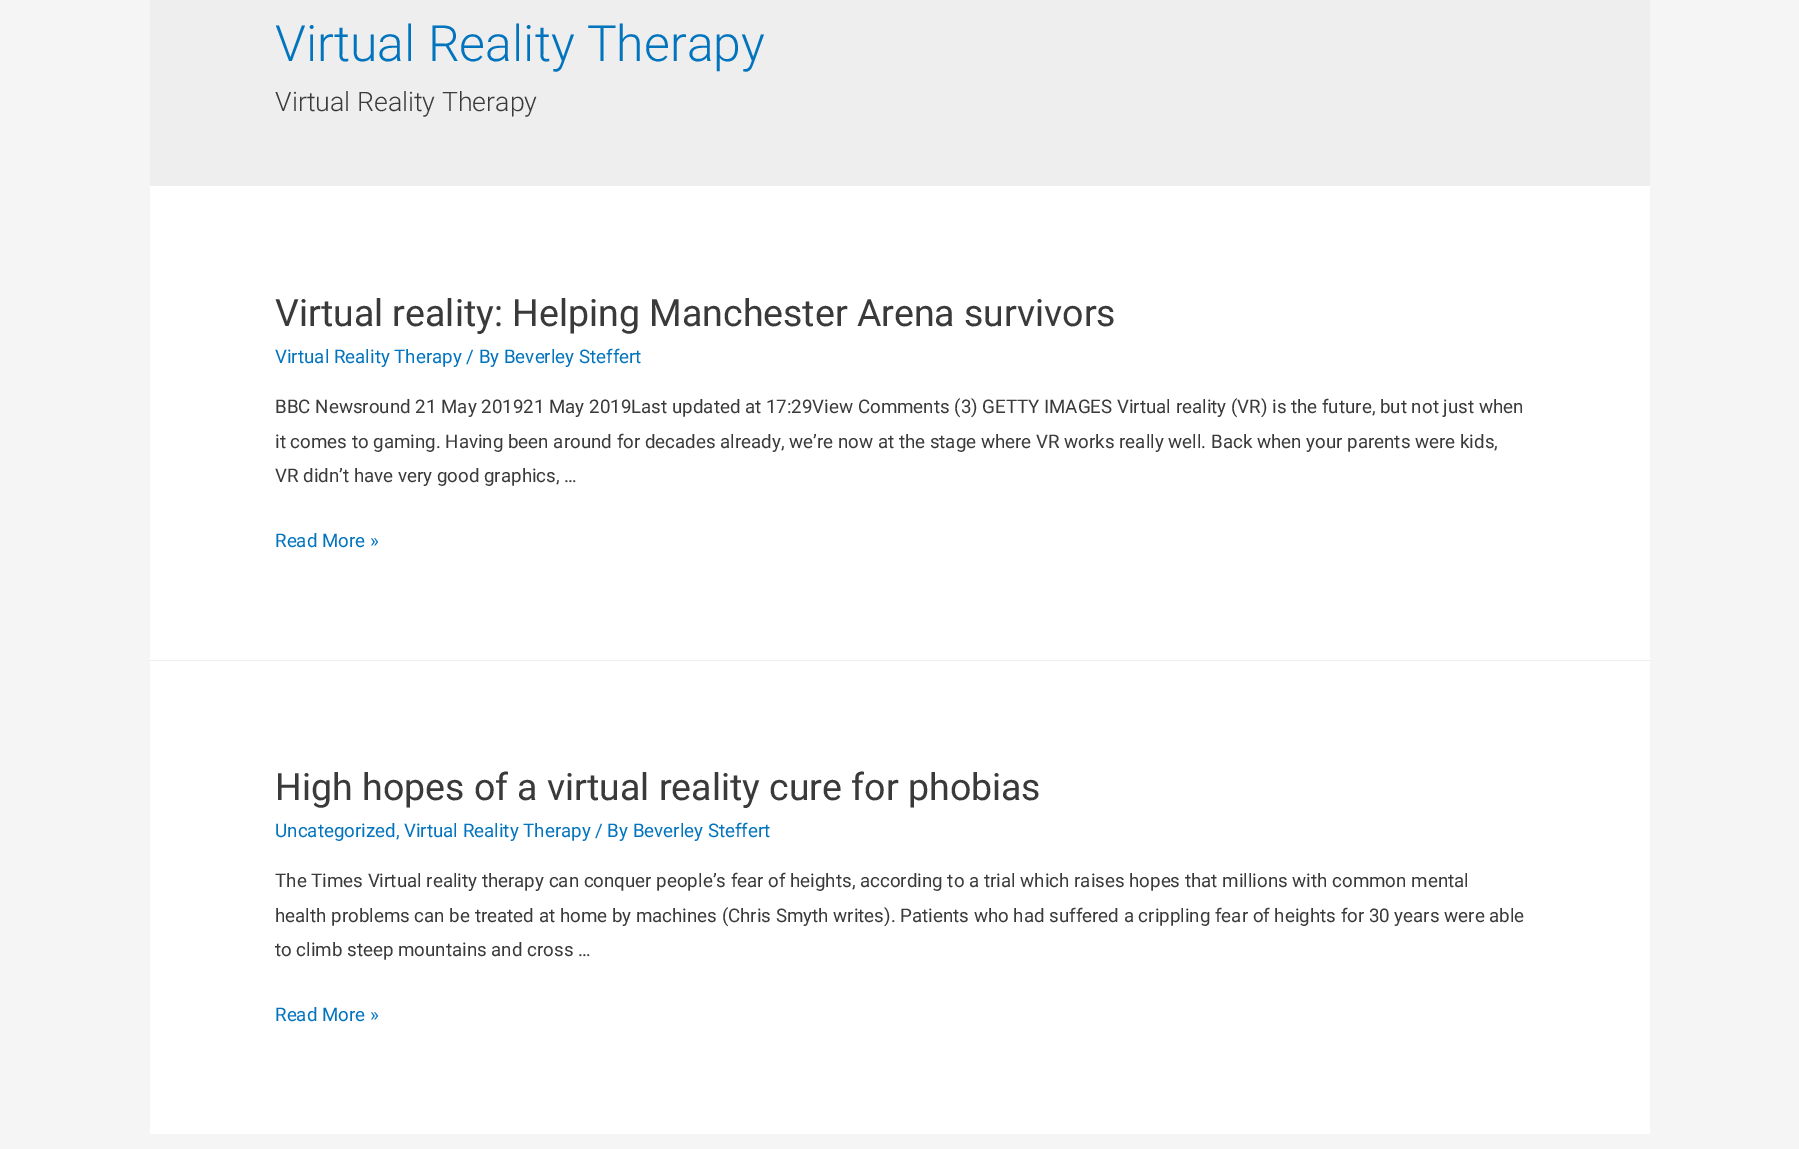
%!PS
<< /PageSize [1799 1149] >> setpagedevice
/rgb { 3 { 255 div 3 1 roll } repeat setrgbcolor } def
/font { [ exch dup neg 0 0 3 -1 roll 0 0 ] selectfont } def
/text { moveto show } def
0 1149 translate 1 -1 scale
4 setmiterlimit
245 245 245 rgb
0 0 1799 1149 rectfill
238 238 238 rgb
150 0 1500 186 rectfill
255 255 255 rgb
150 186 1500 474 rectfill
238 238 238 rgb
150 660 1500 1 rectfill
255 255 255 rgb
150 661 1500 473 rectfill
/Roboto-Light 50 font
2 116 190 rgb
(Virtual Reality Therapy) 275 61 text
/Roboto-Light 26.75 font
58 58 58 rgb
(Virtual Reality Therapy) 275 111 text
/Roboto-Regular 37.5 font
(Virtual reality: Helping Manchester Arena survivors) 275 326 text
/Roboto-Regular 18.75 font
2 116 190 rgb
(Virtual Reality Therapy / By Beverley Steffert) 275 363 text
58 58 58 rgb
(BBC Newsround 21 May 201921 May 2019Last updated at 17:29View Comments \(3\) GETTY IMAGES Virtual reality \(VR\) is the future, but not just when) 275 413 text
(it comes to gaming. Having been around for decades already, we’re now at the stage where VR works really well. Back when your parents were kids,) 275 448 text
(VR didn’t have very good graphics, …) 275 482 text
2 116 190 rgb
(Read More ») 275 547 text
/Roboto-Regular 37.5 font
58 58 58 rgb
(High hopes of a virtual reality cure for phobias) 275 800 text
/Roboto-Regular 18.75 font
2 116 190 rgb
(Uncategorized, Virtual Reality Therapy / By Beverley Steffert) 275 837 text
58 58 58 rgb
(The Times Virtual reality therapy can conquer people’s fear of heights, according to a trial which raises hopes that millions with common mental) 275 887 text
(health problems can be treated at home by machines \(Chris Smyth writes\). Patients who had suffered a crippling fear of heights for 30 years were able) 275 922 text
(to climb steep mountains and cross …) 275 956 text
2 116 190 rgb
(Read More ») 275 1021 text
showpage
